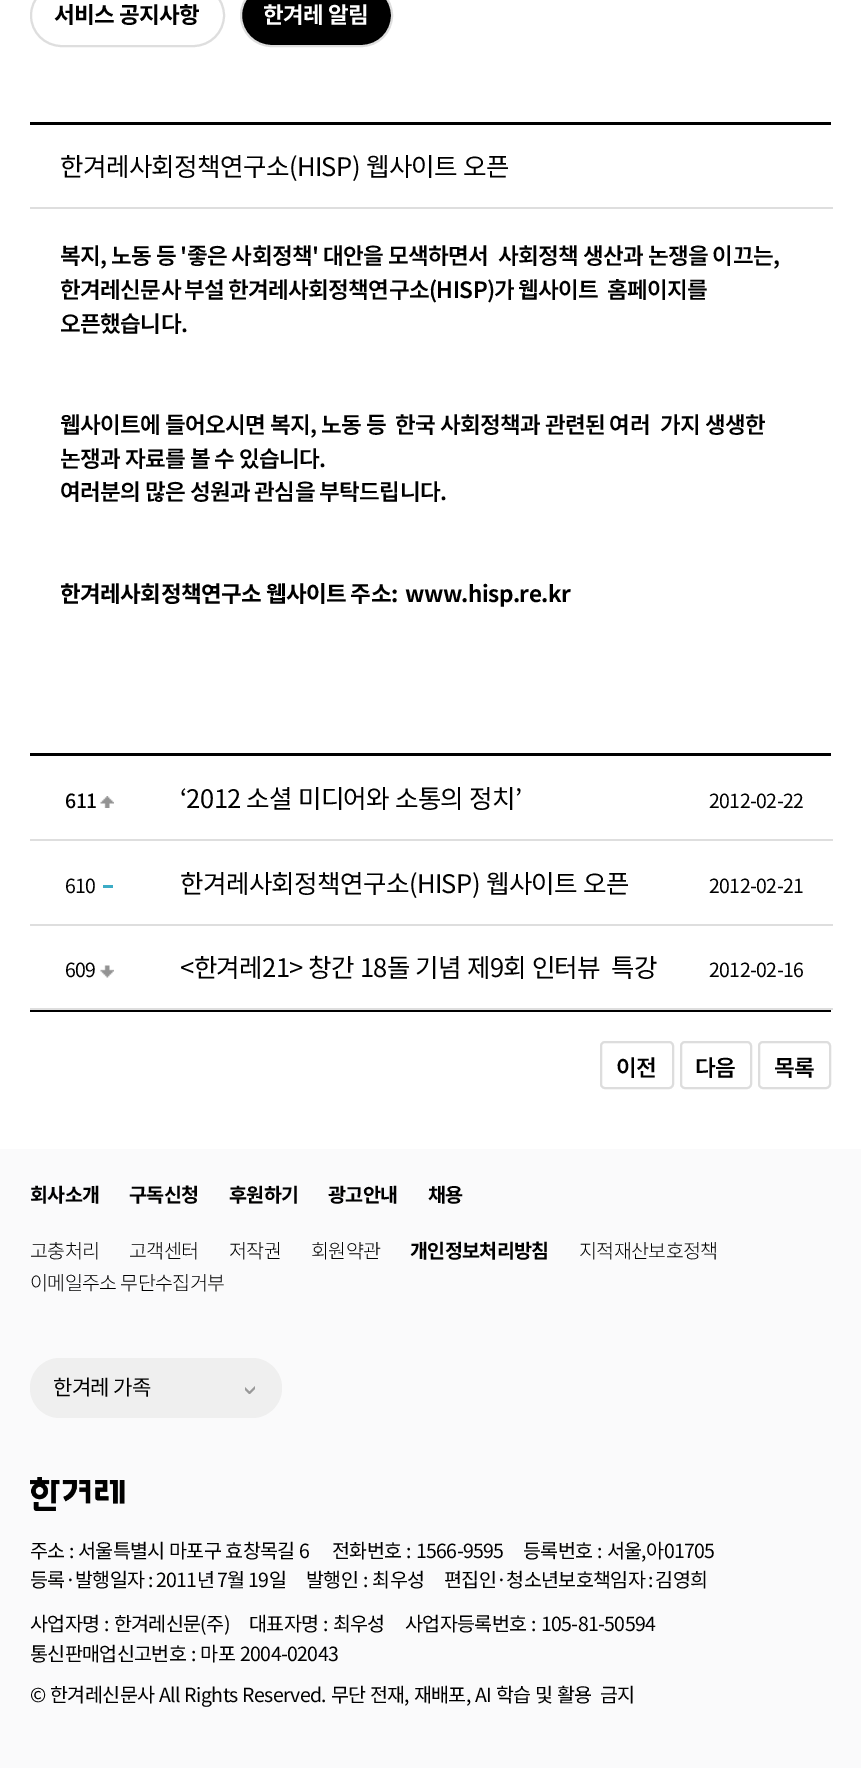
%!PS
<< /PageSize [861 1768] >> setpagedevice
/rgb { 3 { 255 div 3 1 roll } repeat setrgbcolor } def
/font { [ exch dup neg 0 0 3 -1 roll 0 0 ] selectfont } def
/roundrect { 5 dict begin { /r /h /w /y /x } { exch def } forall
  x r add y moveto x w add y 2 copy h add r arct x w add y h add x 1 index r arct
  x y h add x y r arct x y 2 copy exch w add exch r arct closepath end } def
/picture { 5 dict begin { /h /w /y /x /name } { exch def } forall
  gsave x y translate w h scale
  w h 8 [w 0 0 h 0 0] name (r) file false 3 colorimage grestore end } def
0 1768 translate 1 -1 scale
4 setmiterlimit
255 255 255 rgb
0 0 861 1768 rectfill
222 222 222 rgb
2 setlinewidth
31 -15 193 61 30.5 roundrect stroke
0 0 0 rgb
241 -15 151 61 30.5 roundrect gsave fill grestore
222 222 222 rgb
stroke
0 0 0 rgb
30 122 801 3 rectfill
222 222 222 rgb
30 207 803 2 rectfill
0 0 0 rgb
30 753 801 3 rectfill
(img_01.rgb) 100 796 14 12 picture
222 222 222 rgb
30 839 803 2 rectfill
60 172 198 rgb
103 885 10 3 rectfill
222 222 222 rgb
30 924 803 2 rectfill
(img_02.rgb) 100 965 14 13 picture
30 1008 803 2 rectfill
0 0 0 rgb
30 1010 801 2 rectfill
221 221 221 rgb
601 1042 72 46 4 roundrect stroke
681 1042 70 46 4 roundrect stroke
759 1042 71 46 4 roundrect stroke
250 250 251 rgb
0 1149 861 619 rectfill
239 239 239 rgb
30 1358 252 60 30 roundrect fill
gsave
245 1385 10 9 rectclip
153 153 153 rgb
1 setlinecap
1 setlinejoin
241.5 1385 moveto 8 8 rlineto 8 -8 rlineto stroke
grestore
(img_03.rgb) 30 1477 95 34 picture
/NotoSansKR-Bold 22.5 font
0 0 0 rgb
54 23 moveto -0.6 0 (서비스 공지사항) ashow
255 255 255 rgb
263 23 moveto -0.6 0 (한겨레 알림) ashow
/NotoSansKR-Regular 25.5 font
0 0 0 rgb
60 176 moveto 1 0 32 -0.6 0 (한겨레사회정책연구소\(HISP\) 웹사이트 오픈) awidthshow
/NotoSansKR-SemiBold 22.5 font
60 264 moveto -0.6 0 (복지, 노동 등 '좋은 사회정책' 대안을 모색하면서) ashow
498 264 moveto -0.6 0 (사회정책 생산과 논쟁을 이끄는,) ashow
60 298 moveto -1 0 32 -0.6 0 (한겨레신문사 부설 한겨레사회정책연구소\(HISP\)가 웹사이트) awidthshow
607 298 moveto -1 0 32 -0.6 0 (홈페이지를) awidthshow
60 332 moveto -0.6 0 (오픈했습니다.) ashow
60 433 moveto -0.6 0 (웹사이트에 들어오시면 복지, 노동 등) ashow
395 433 moveto -0.6 0 (한국 사회정책과 관련된 여러) ashow
660 433 moveto -0.6 0 (가지 생생한) ashow
60 467 moveto -0.6 0 (논쟁과 자료를 볼 수 있습니다.) ashow
60 500 moveto -0.6 0 (여러분의 많은 성원과 관심을 부탁드립니다.) ashow
/NotoSansKR-Bold 22.5 font
60 602 moveto -0.6 0 (한겨레사회정책연구소 웹사이트 주소:) ashow
405 602 moveto -0.6 0 (www.hisp.re.kr) ashow
/NotoSansKR-Medium 19.5 font
65 808 moveto -0.6 0 (611) ashow
/NotoSansKR-Regular 25.5 font
180 808 moveto 0.5 0 32 -0.6 0 (‘2012 소셜 미디어와 소통의 정치’) awidthshow
/NotoSansKR-Regular 19.5 font
709 808 moveto -0.6 0 (2012-02-22) ashow
65 893 moveto -0.6 0 (610) ashow
/NotoSansKR-Regular 25.5 font
180 893 moveto 1 0 32 -0.6 0 (한겨레사회정책연구소\(HISP\) 웹사이트 오픈) awidthshow
/NotoSansKR-Regular 19.5 font
709 893 moveto -0.6 0 (2012-02-21) ashow
65 977 moveto -0.6 0 (609) ashow
/NotoSansKR-Regular 25.5 font
180 977 moveto 0.5 0 32 -0.6 0 (<한겨레21> 창간 18돌 기념 제9회 인터뷰) awidthshow
611 977 moveto 0.5 0 32 -0.6 0 (특강) awidthshow
/NotoSansKR-Regular 19.5 font
709 977 moveto -0.6 0 (2012-02-16) ashow
/NotoSansKR-SemiBold 22.5 font
616 1076 moveto -0.6 0 (이전) ashow
695 1076 moveto -0.6 0 (다음) ashow
774 1076 moveto -0.6 0 (목록) ashow
/NotoSansKR-Bold 19.5 font
30 1202 moveto -0.6 0 (회사소개) ashow
129 1202 moveto -0.6 0 (구독신청) ashow
229 1202 moveto -0.6 0 (후원하기) ashow
328 1202 moveto -0.6 0 (광고안내) ashow
428 1202 moveto -0.6 0 (채용) ashow
/NotoSansKR-Light 19.5 font
30 1258 moveto -0.6 0 (고충처리) ashow
129 1258 moveto -0.6 0 (고객센터) ashow
229 1258 moveto -0.6 0 (저작권) ashow
311 1258 moveto -0.6 0 (회원약관) ashow
/NotoSansKR-Bold 19.5 font
410 1258 moveto -0.6 0 (개인정보처리방침) ashow
/NotoSansKR-Light 19.5 font
579 1258 moveto -0.6 0 (지적재산보호정책) ashow
30 1290 moveto -0.6 0 (이메일주소 무단수집거부) ashow
/NotoSansKR-Regular 21 font
53 1395 moveto -0.6 0 (한겨레 가족) ashow
/NotoSansKR-Regular 19.5 font
30 1558 moveto 0.5 0 32 -0.6 0 (주소 : 서울특별시 마포구 효창목길 6) awidthshow
332 1558 moveto 1 0 32 -0.6 0 (전화번호 : 1566-9595) awidthshow
523 1558 moveto 1 0 32 -0.6 0 (등록번호 : 서울,아01705) awidthshow
30 1587 moveto -0.5 0 32 -0.6 0 (등록·발행일자 : 2011년 7월 19일) awidthshow
306 1587 moveto 1 0 32 -0.6 0 (발행인 : 최우성) awidthshow
444 1587 moveto -1 0 32 -0.6 0 (편집인·청소년보호책임자 : 김영희) awidthshow
30 1631 moveto 1 0 32 -0.6 0 (사업자명 : 한겨레신문\(주\)) awidthshow
249 1631 moveto 1 0 32 -0.6 0 (대표자명 : 최우성) awidthshow
405 1631 moveto 1 0 32 -0.6 0 (사업자등록번호 : 105-81-50594) awidthshow
30 1661 moveto 1 0 32 -0.6 0 (통신판매업신고번호 : 마포 2004-02043) awidthshow
30 1702 moveto 0.75 0 32 -0.6 0 (© 한겨레신문사 All Rights Reserved. 무단 전재, 재배포, AI 학습 및 활용) awidthshow
600 1702 moveto 0.75 0 32 -0.6 0 (금지) awidthshow
showpage
